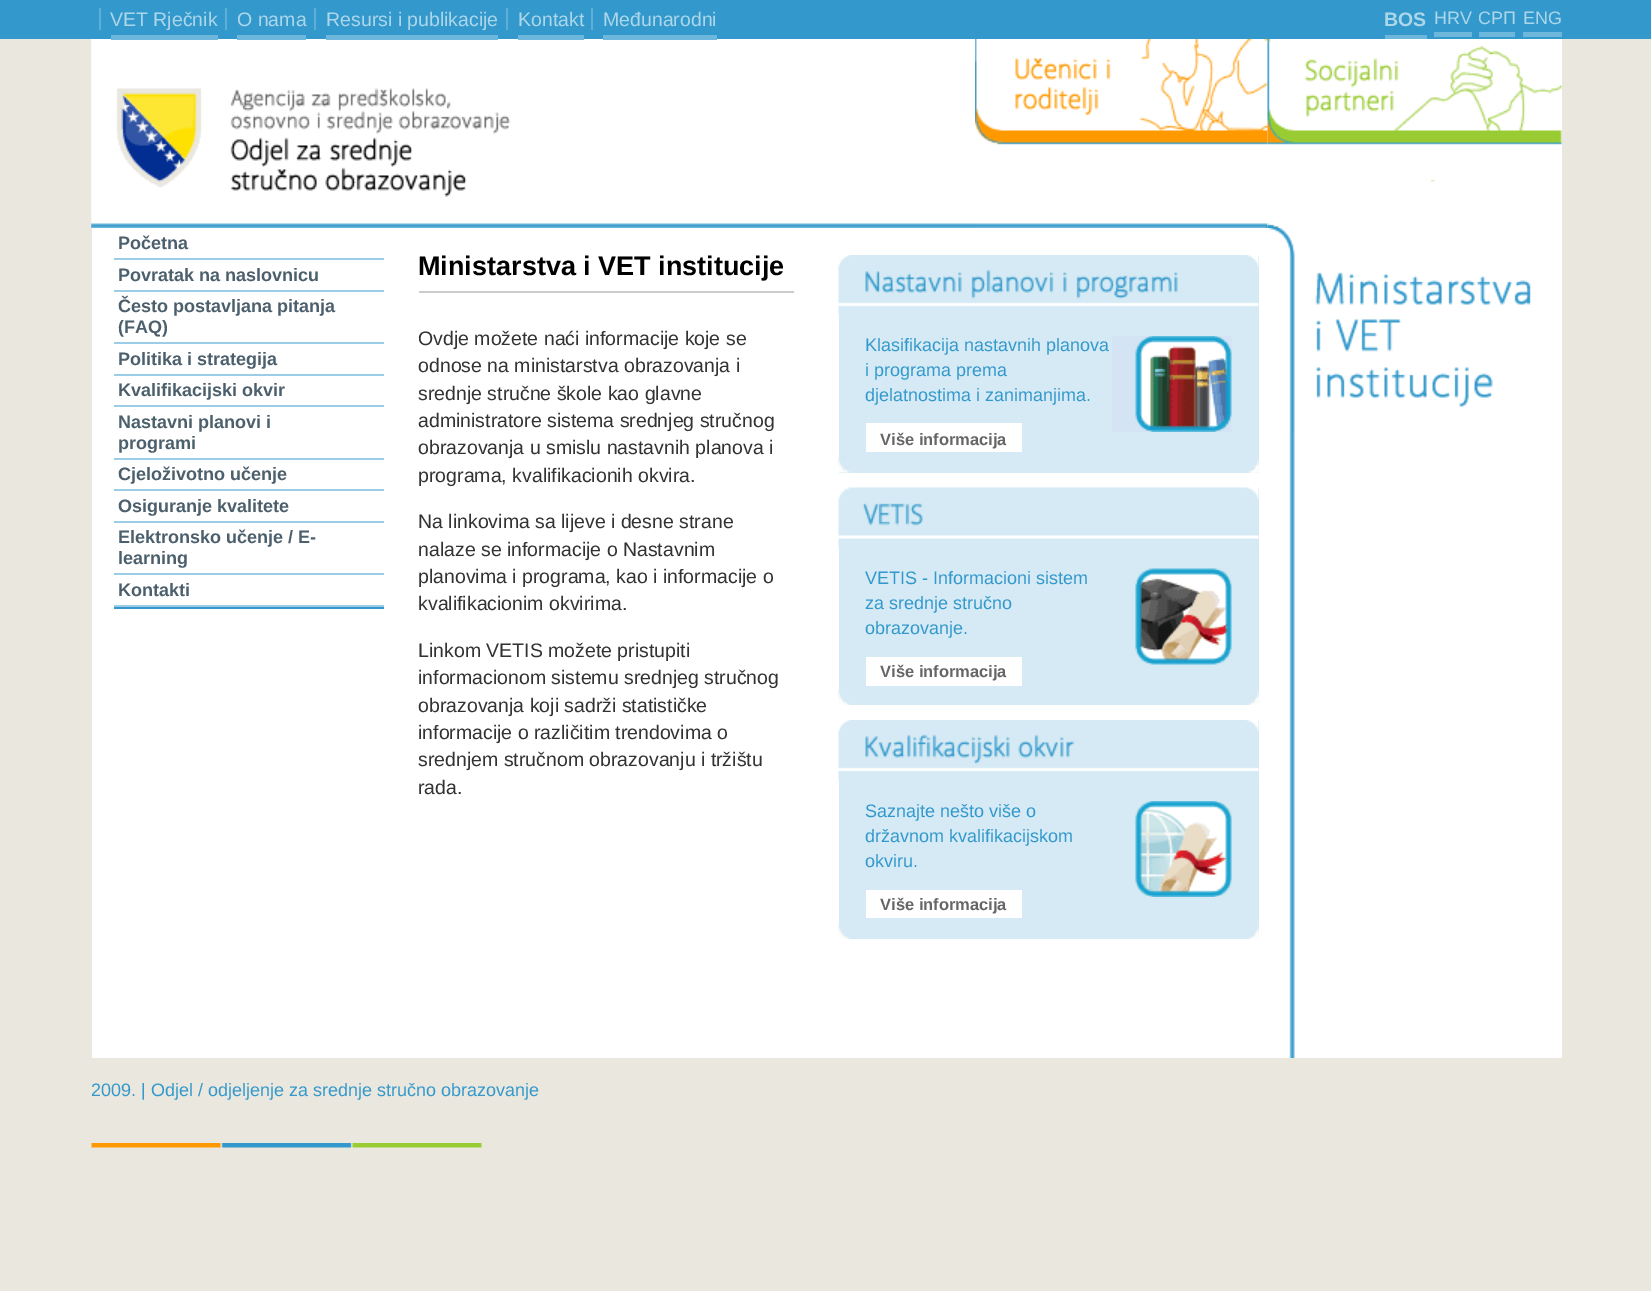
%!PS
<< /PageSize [1651 1291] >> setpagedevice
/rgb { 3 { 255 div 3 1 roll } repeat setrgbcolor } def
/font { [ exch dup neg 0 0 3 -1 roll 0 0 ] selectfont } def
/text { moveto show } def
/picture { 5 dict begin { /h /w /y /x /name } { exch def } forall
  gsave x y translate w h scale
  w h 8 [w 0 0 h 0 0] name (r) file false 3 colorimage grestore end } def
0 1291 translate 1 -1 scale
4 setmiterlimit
234 231 223 rgb
0 0 1651 1291 rectfill
51 153 204 rgb
0 0 1651 39 rectfill
94 175 215 rgb
99 8 2 22 rectfill
255 255 255 rgb
92 39 1470 1019 rectfill
(img_02.rgb) 91 39 884 189 picture
(img_03.rgb) 91 39 420 189 picture
108 183 219 rgb
111 35 107 5 rectfill
94 175 215 rgb
225 8 2 22 rectfill
108 183 219 rgb
237 35 69 5 rectfill
94 175 215 rgb
314 8 2 22 rectfill
108 183 219 rgb
326 35 172 5 rectfill
94 175 215 rgb
506 8 2 22 rectfill
108 183 219 rgb
518 35 66 5 rectfill
94 175 215 rgb
591 8 2 22 rectfill
108 183 219 rgb
603 35 114 5 rectfill
1385 35 42 4 rectfill
1434 32 38 5 rectfill
1479 32 36 5 rectfill
1523 32 39 5 rectfill
(img_01.rgb) 1289 432 6 626 picture
(img_04.rgb) 975 39 293 189 picture
(img_05.rgb) 1267 39 295 189 picture
51 153 204 rgb
114 607 270 2 rectfill
155 205 230 rgb
114 258 270 2 rectfill
114 290 270 2 rectfill
114 342 270 2 rectfill
114 374 270 2 rectfill
114 405 270 2 rectfill
114 458 270 2 rectfill
114 489 270 2 rectfill
114 521 270 2 rectfill
114 573 270 2 rectfill
114 605 270 2 rectfill
204 204 204 rgb
419 291 375 2 rectfill
213 234 244 rgb
839 255 420 218 rectfill
(img_06.rgb) 838 457 13 16 picture
(img_07.rgb) 1248 458 11 15 picture
(img_08.rgb) 1249 462 10 11 picture
(img_09.rgb) 1251 465 8 8 picture
(img_10.rgb) 838 255 421 60 picture
(img_11.rgb) 1112 336 120 96 picture
255 255 255 rgb
866 423 156 29 rectfill
213 234 244 rgb
839 488 420 217 rectfill
(img_12.rgb) 838 690 13 15 picture
(img_13.rgb) 1248 690 11 15 picture
(img_14.rgb) 1258 695 1 3 picture
246 251 250 rgb
1258 698 1 7 rectfill
(img_15.rgb) 838 487 421 61 picture
(img_16.rgb) 1135 568 97 97 picture
255 255 255 rgb
866 657 156 29 rectfill
213 234 244 rgb
839 720 420 219 rectfill
(img_12.rgb) 838 924 13 15 picture
(img_13.rgb) 1248 924 11 15 picture
(img_14.rgb) 1258 929 1 3 picture
246 251 250 rgb
1258 932 1 7 rectfill
(img_17.rgb) 838 720 421 60 picture
(img_18.rgb) 1135 801 97 96 picture
255 255 255 rgb
866 890 156 28 rectfill
(img_19.rgb) 1269 228 262 204 picture
(img_20.rgb) 91 1143 391 5 picture
/LiberationSans-Regular 19.5 font
172 214 234 rgb
(VET Rječnik) 110 26 text
(O nama) 237 26 text
(Resursi i publikacije) 326 26 text
(Kontakt) 518 26 text
(Međunarodni) 603 26 text
/LiberationSans-Bold 19.5 font
(BOS) 1384 26 text
/LiberationSans-Regular 18 font
(HRV) 1434 24 text
(СРП) 1478 24 text
(ENG) 1523 24 text
/LiberationSans-Bold 18 font
76 95 108 rgb
(Početna) 118 249 text
(Povratak na naslovnicu) 118 281 text
(Često postavljana pitanja) 118 312 text
(\(FAQ\)) 118 333 text
(Politika i strategija) 118 365 text
(Kvalifikacijski okvir) 118 396 text
(Nastavni planovi i) 118 428 text
(programi) 118 449 text
(Cjeloživotno učenje) 118 480 text
(Osiguranje kvalitete) 118 512 text
(Elektronsko učenje / E-) 118 543 text
(learning) 118 564 text
(Kontakti) 118 596 text
/LiberationSans-Bold 27 font
0 0 0 rgb
(Ministarstva i VET institucije) 418 275 text
/LiberationSans-Regular 19.5 font
51 51 51 rgb
(Ovdje možete naći informacije koje se) 418 345 text
(odnose na ministarstva obrazovanja i) 418 372 text
(srednje stručne škole kao glavne) 418 400 text
(administratore sistema srednjeg stručnog) 418 427 text
(obrazovanja u smislu nastavnih planova i) 418 454 text
(programa, kvalifikacionih okvira.) 418 482 text
(Na linkovima sa lijeve i desne strane) 418 528 text
(nalaze se informacije o Nastavnim) 418 556 text
(planovima i programa, kao i informacije o) 418 583 text
(kvalifikacionim okvirima.) 418 610 text
(Linkom VETIS možete pristupiti) 418 657 text
(informacionom sistemu srednjeg stručnog) 418 684 text
(obrazovanja koji sadrži statističke) 418 712 text
(informacije o različitim trendovima o) 418 739 text
(srednjem stručnom obrazovanju i tržištu) 418 766 text
(rada.) 418 794 text
/LiberationSans-Regular 18 font
51 153 204 rgb
(Klasifikacija nastavnih planova) 865 351 text
(i programa prema) 865 376 text
(djelatnostima i zanimanjima.) 865 401 text
/LiberationSans-Bold 16.5 font
102 102 102 rgb
(Više informacija) 880 445 text
/LiberationSans-Regular 18 font
51 153 204 rgb
(VETIS - Informacioni sistem) 865 584 text
(za srednje stručno) 865 609 text
(obrazovanje.) 865 634 text
/LiberationSans-Bold 16.5 font
102 102 102 rgb
(Više informacija) 880 677 text
/LiberationSans-Regular 18 font
51 153 204 rgb
(Saznajte nešto više o) 865 817 text
(državnom kvalifikacijskom) 865 842 text
(okviru.) 865 867 text
/LiberationSans-Bold 16.5 font
102 102 102 rgb
(Više informacija) 880 910 text
/LiberationSans-Regular 18 font
51 153 204 rgb
(2009. | Odjel / odjeljenje za srednje stručno obrazovanje) 91 1096 text
showpage
